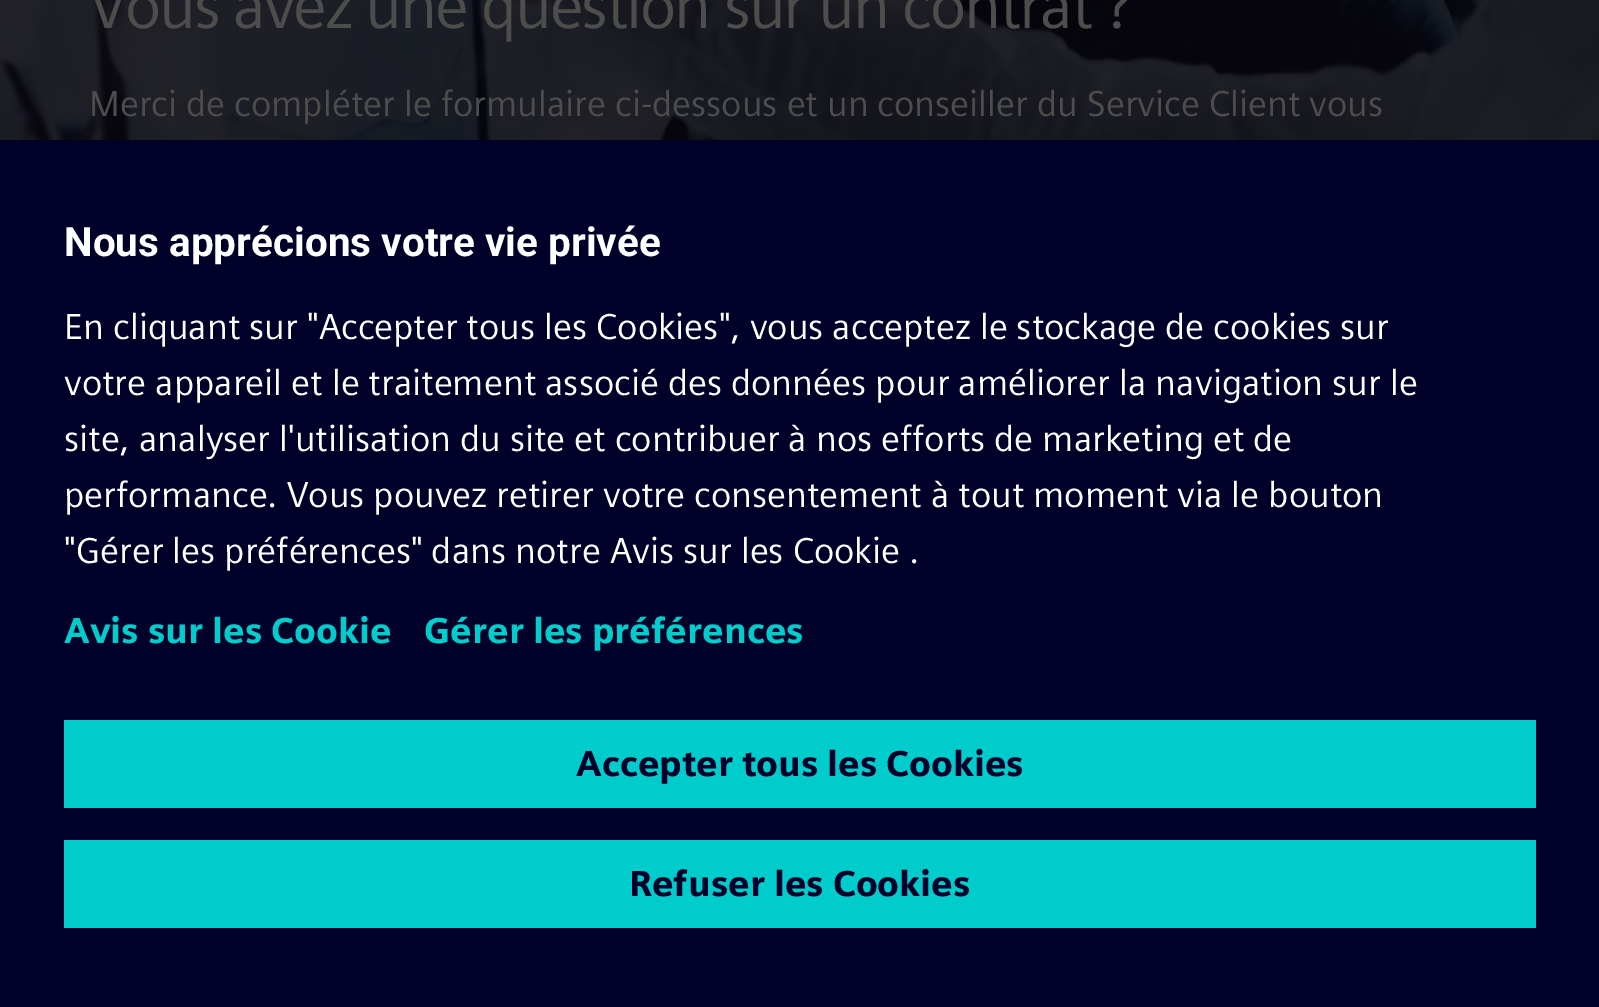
%!PS
<< /PageSize [1599 1007] >> setpagedevice
/rgb { 3 { 255 div 3 1 roll } repeat setrgbcolor } def
/font { [ exch dup neg 0 0 3 -1 roll 0 0 ] selectfont } def
/text { moveto show } def
/picture { 5 dict begin { /h /w /y /x /name } { exch def } forall
  gsave x y translate w h scale
  w h 8 [w 0 0 h 0 0] name (r) file false 3 colorimage grestore end } def
0 1007 translate 1 -1 scale
4 setmiterlimit
255 255 255 rgb
0 0 1599 1007 rectfill
(img_01.rgb) 0 0 1599 140 picture
0 0 40 rgb
0 140 1599 867 rectfill
0 204 204 rgb
64 720 1472 88 rectfill
64 840 1472 88 rectfill
/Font-Regular 64 font
77 77 77 rgb
89 28 moveto -2 0 (Vous avez une question sur un contrat ?) ashow
/Font-Regular 36 font
(Merci de compléter le formulaire ci-dessous et un conseiller du Service Client vous) 89 116 text
/Roboto-Bold 40.5 font
255 255 255 rgb
(Nous apprécions votre vie privée) 64 256 text
/Font-Regular 36 font
(En cliquant sur "Accepter tous les Cookies", vous acceptez le stockage de cookies sur) 64 339 text
(votre appareil et le traitement associé des données pour améliorer la navigation sur le) 64 395 text
(site, analyser l'utilisation du site et contribuer à nos efforts de marketing et de) 64 451 text
(performance. Vous pouvez retirer votre consentement à tout moment via le bouton) 64 507 text
("Gérer les préférences" dans notre Avis sur les Cookie .) 64 563 text
/Font-Bold 36 font
0 204 204 rgb
(Avis sur les Cookie) 64 643 text
(Gérer les préférences) 424 643 text
0 0 40 rgb
(Accepter tous les Cookies) 576 776 text
(Refuser les Cookies) 629 896 text
showpage
